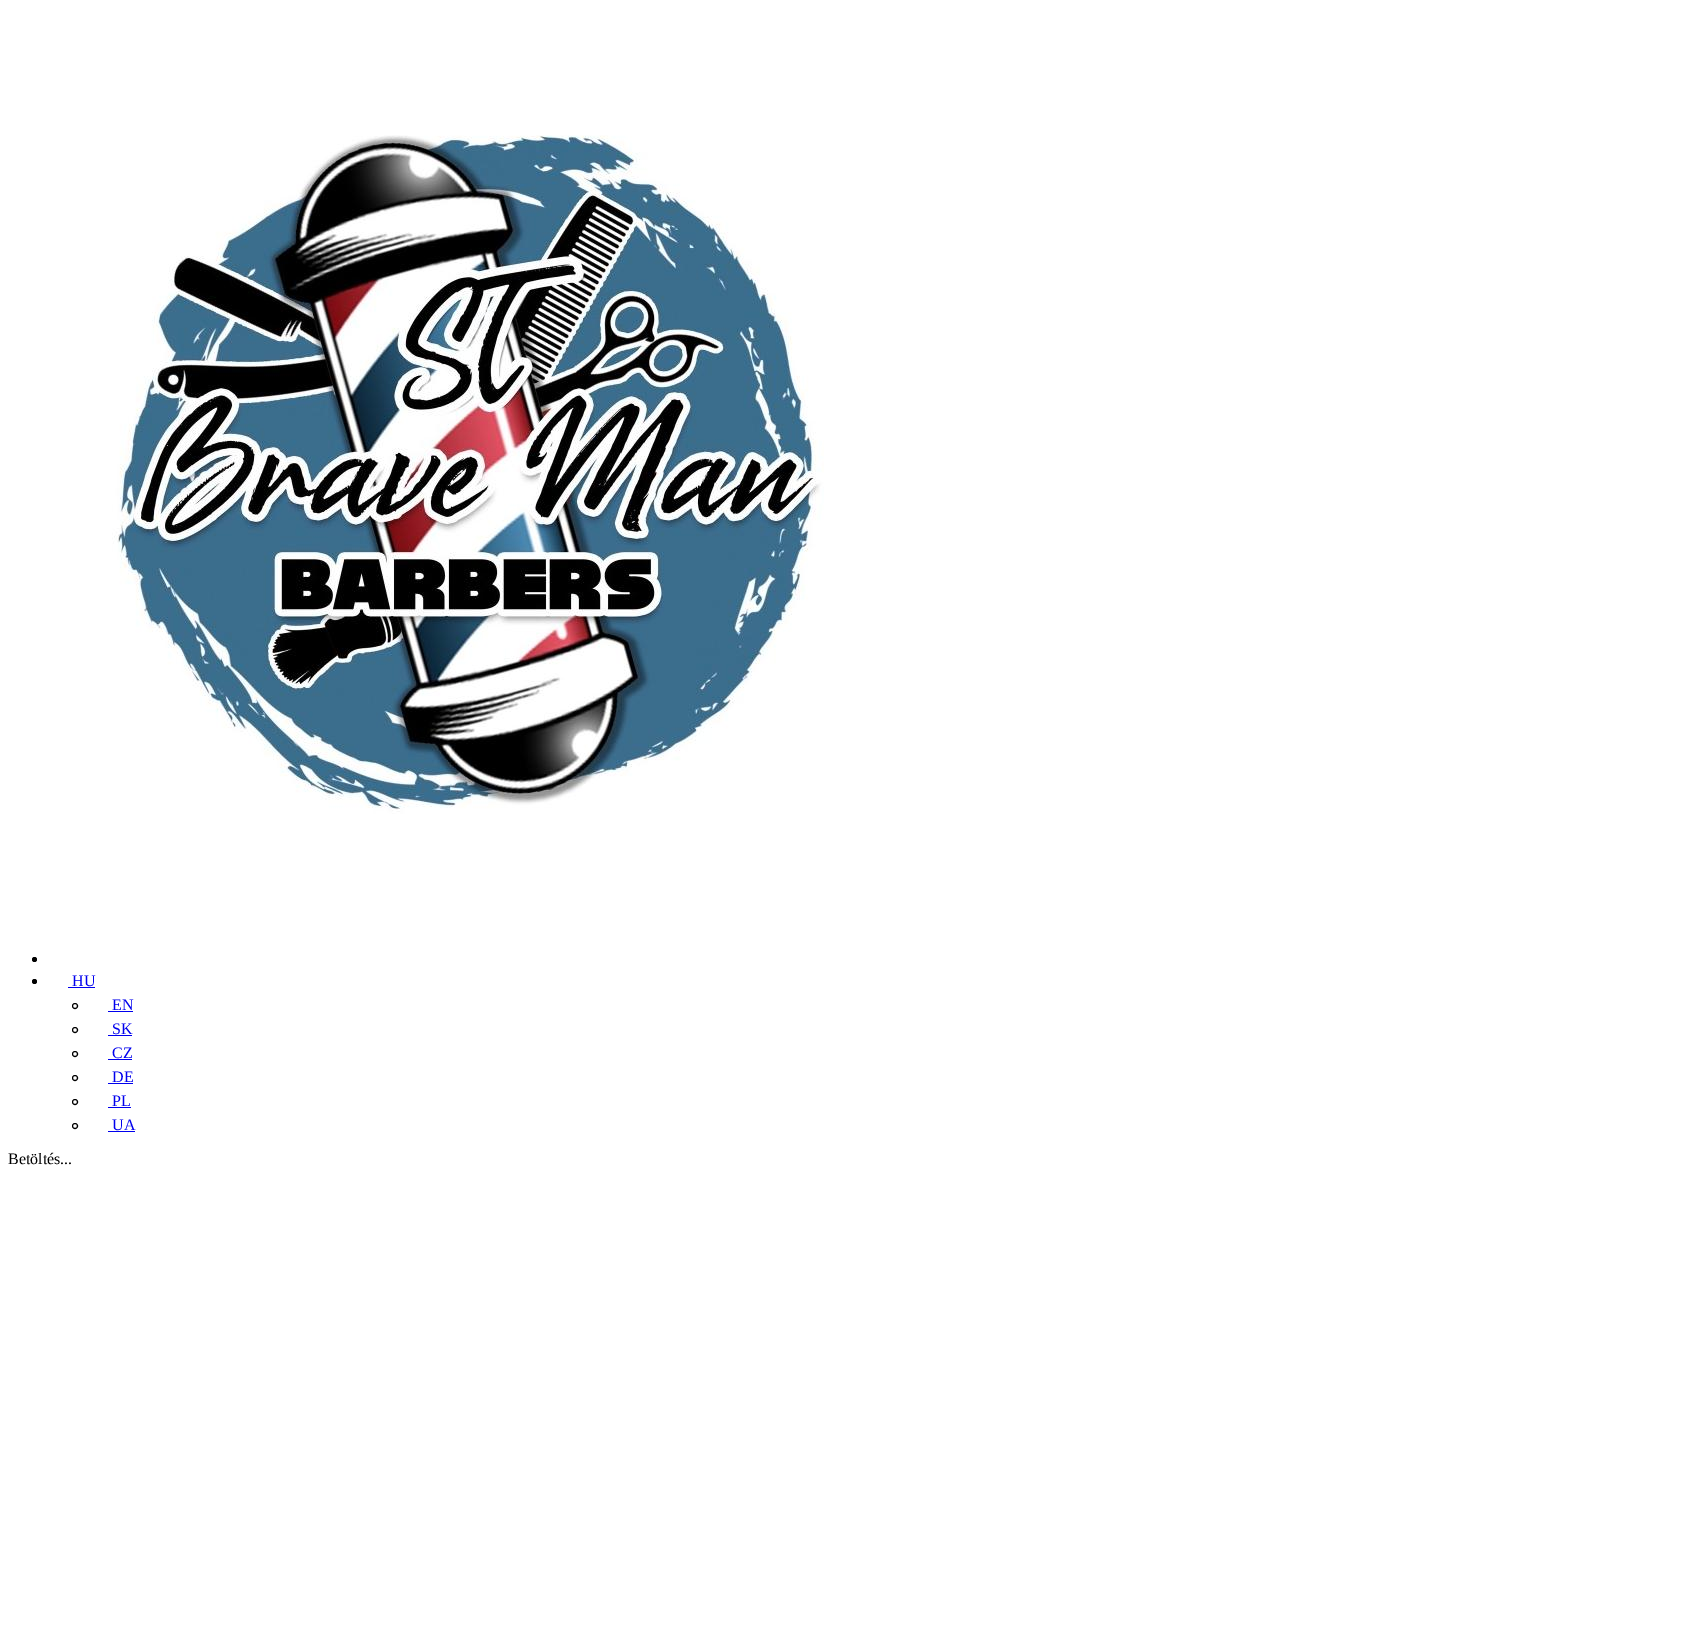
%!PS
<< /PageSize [1699 1651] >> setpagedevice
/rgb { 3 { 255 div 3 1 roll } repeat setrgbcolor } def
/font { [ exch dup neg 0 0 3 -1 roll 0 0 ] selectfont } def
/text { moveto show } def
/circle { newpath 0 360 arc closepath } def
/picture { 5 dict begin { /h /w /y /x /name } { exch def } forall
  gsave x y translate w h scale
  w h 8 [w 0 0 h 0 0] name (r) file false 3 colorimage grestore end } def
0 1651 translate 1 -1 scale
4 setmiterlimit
255 255 255 rgb
0 0 1699 1651 rectfill
(img_01.rgb) 112 135 712 679 picture
0 0 0 rgb
34.5 959.5 2.5 circle fill
34.5 981.5 2.5 circle fill
0 0 238 rgb
68 987 27 1 rectfill
0 0 0 rgb
75 1006 2.5 circle stroke
0 0 238 rgb
108 1011 25 1 rectfill
0 0 0 rgb
75 1030 2.5 circle stroke
0 0 238 rgb
108 1035 24 1 rectfill
0 0 0 rgb
75 1054 2.5 circle stroke
0 0 238 rgb
108 1059 24 1 rectfill
0 0 0 rgb
75 1078 2.5 circle stroke
0 0 238 rgb
108 1083 25 1 rectfill
0 0 0 rgb
75 1102 2.5 circle stroke
0 0 238 rgb
108 1107 23 1 rectfill
0 0 0 rgb
75 1126 2.5 circle stroke
0 0 238 rgb
108 1131 27 1 rectfill
/LiberationSerif-Regular 16 font
(HU) 72 986 text
(EN) 112 1010 text
(SK) 112 1034 text
(CZ) 112 1058 text
(DE) 112 1082 text
(PL) 112 1106 text
(UA) 112 1130 text
0 0 0 rgb
(Betöltés...) 8 1164 text
showpage
